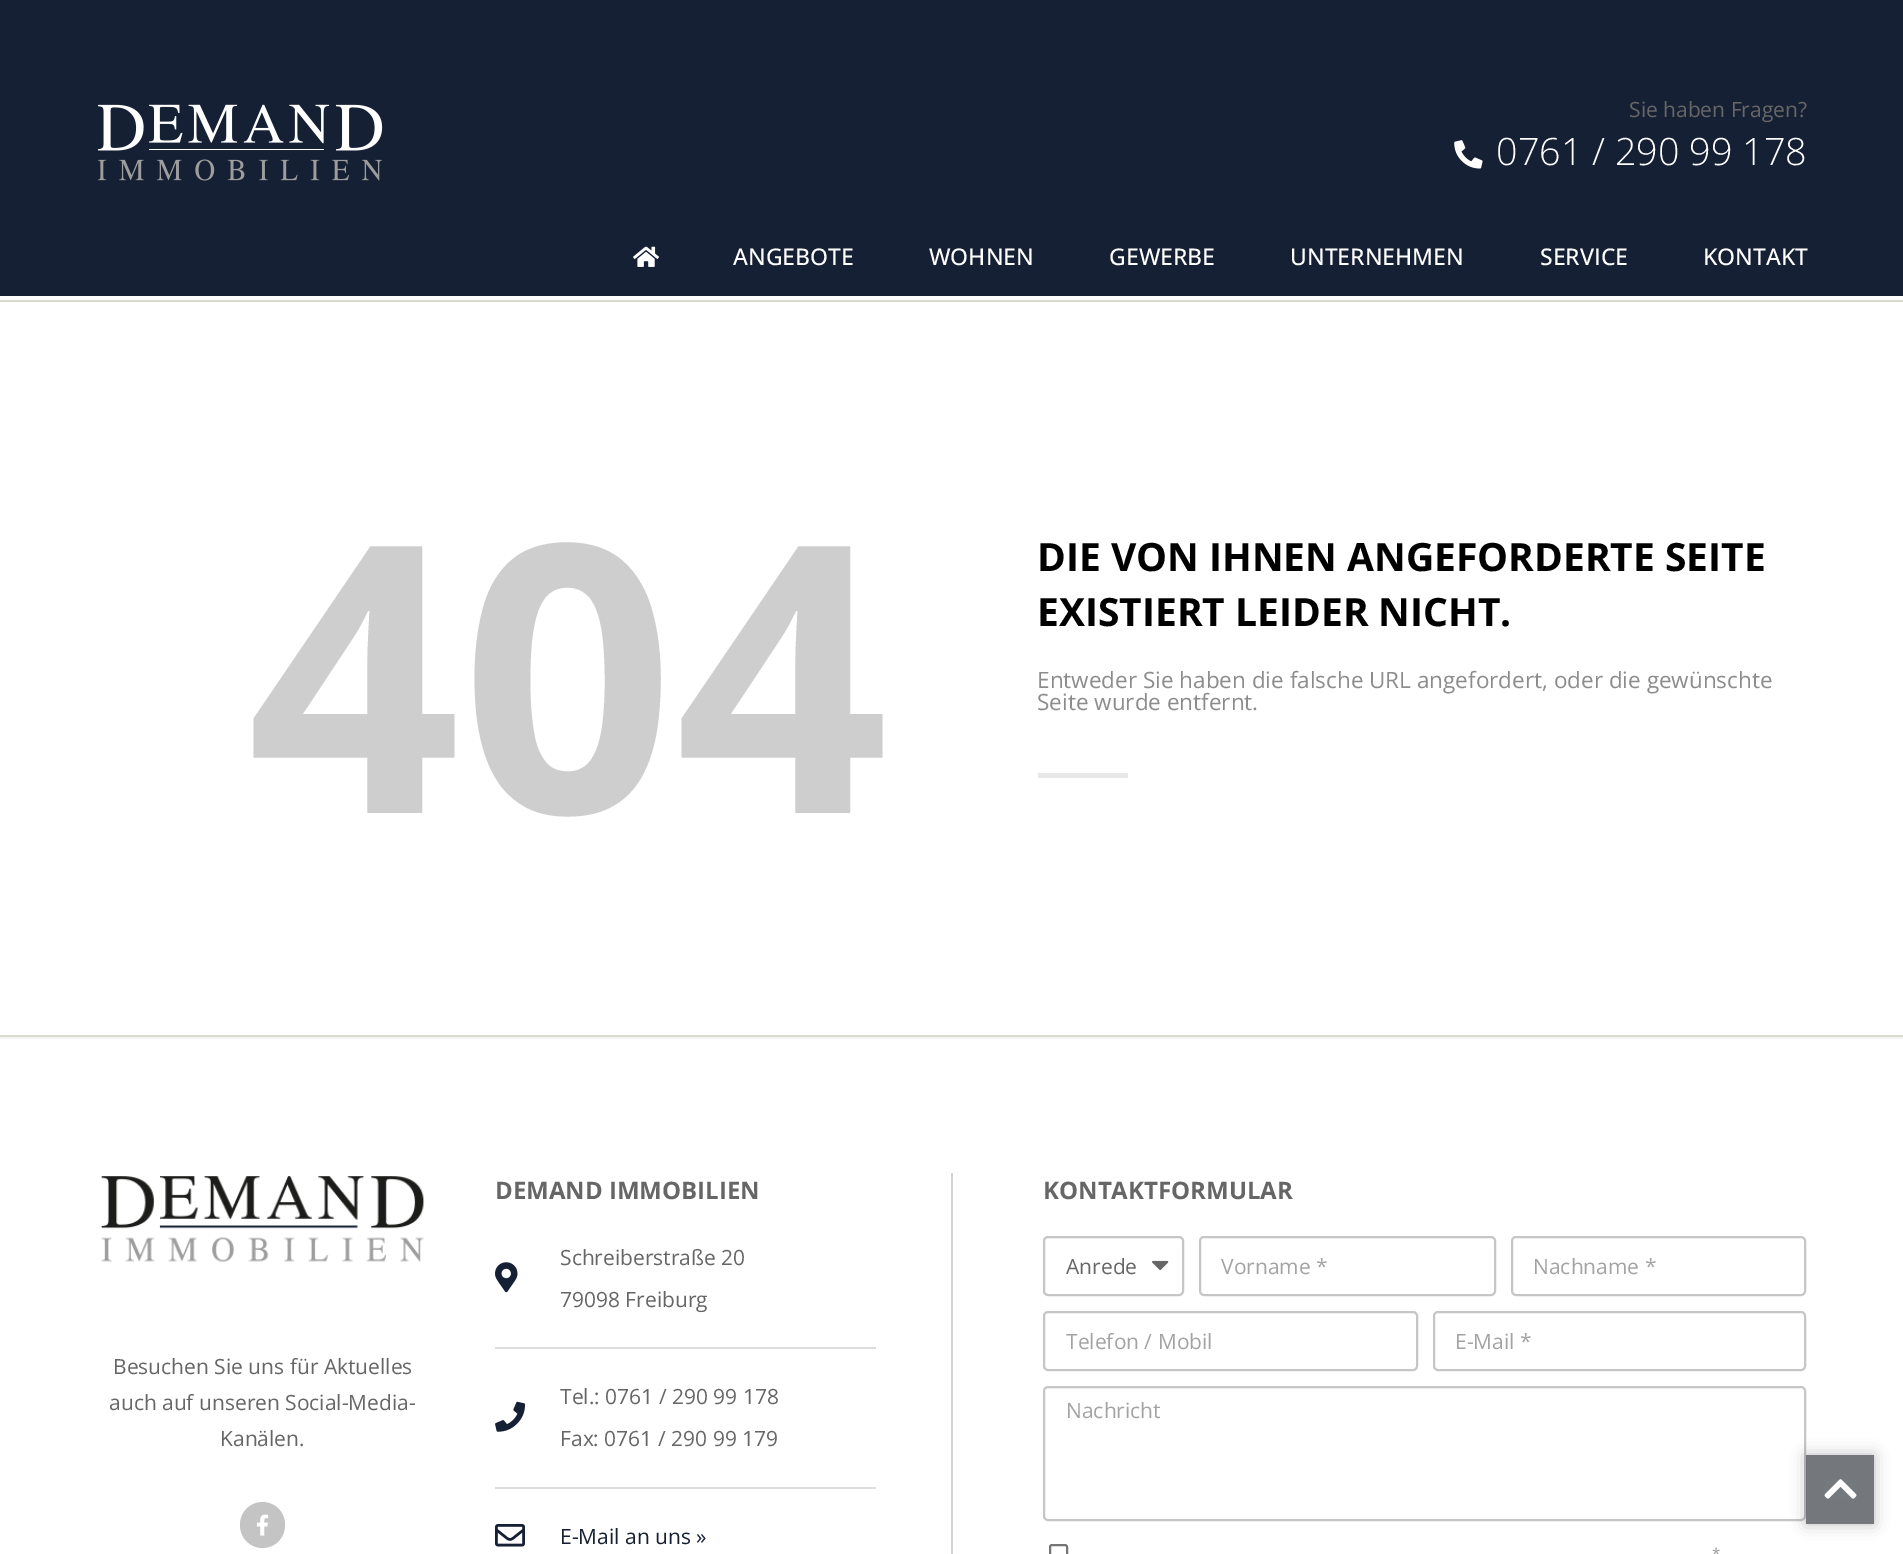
%!PS
<< /PageSize [1903 1554] /PageUsesTransparency true >> setpagedevice
/rgb { 3 { 255 div 3 1 roll } repeat setrgbcolor } def
/font { [ exch dup neg 0 0 3 -1 roll 0 0 ] selectfont } def
/text { moveto show } def
/alpha { dup .setfillconstantalpha .setstrokeconstantalpha } def
/roundrect { 5 dict begin { /r /h /w /y /x } { exch def } forall
  x r add y moveto x w add y 2 copy h add r arct x w add y h add x 1 index r arct
  x y h add x y r arct x y 2 copy exch w add exch r arct closepath end } def
/shadow { 12 dict begin { /a /b /q /h /w /y /x } { exch def } forall gsave /was 0 def
  9 -2 -9 { dup b mul 4 div /e exch def 1 sub .425 mul 2.718 exch exp 1 add a .99 .min exch div /now exch def
    1 1 now sub 1 was sub div sub alpha /was now def
    w h .min e 2 mul add 0 gt { x e sub y e sub w e 2 mul add h e 2 mul add
      q e add b .6 mul add w h .min 2 div e add .min 0 .max roundrect fill } if } for grestore end } def
/picture { 5 dict begin { /h /w /y /x /name } { exch def } forall
  gsave x y translate w h scale
  w h 8 [w 0 0 h 0 0] name (r) file false 3 colorimage grestore end } def
0 .pushpdf14devicefilter
0 1554 translate 1 -1 scale
4 setmiterlimit
255 255 255 rgb
0 0 1903 1554 rectfill
22 32 53 rgb
0 0 1903 296 rectfill
(img_01.rgb) 98 104 285 77 picture
(img_02.rgb) 1454 140 29 29 picture
(img_03.rgb) 633 246 26 21 picture
198 198 198 rgb
2 setlinewidth
1044 1387 761 133 4 roundrect stroke
gsave
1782 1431 moveto 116 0 rlineto 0 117 rlineto -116 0 rlineto closepath 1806 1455 moveto 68 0 rlineto 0 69 rlineto -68 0 rlineto closepath eoclip newpath
0 0 0 rgb
1806 1455 68 69 0 7.5 0.25 shadow
grestore
0.81 alpha
84 89 95 rgb
1806 1455 68 69 rectfill
1 alpha
(img_04.rgb) 1824 1479 33 20 picture
216 218 205 rgb
0 300 1903 2 rectfill
0 1035 1903 2 rectfill
232 232 232 rgb
1038 773 90 5 rectfill
242 242 242 rgb
0 1037 1903 2 rectfill
(img_05.rgb) 101 1176 324 86 picture
196 196 196 rgb
240 1502 45 46 22.5 roundrect fill
(img_06.rgb) 256 1514 13 22 picture
(img_07.rgb) 495 1262 23 31 picture
221 221 221 rgb
495 1347 381 2 rectfill
(img_08.rgb) 495 1401 31 31 picture
495 1487 381 2 rectfill
(img_09.rgb) 495 1524 30 23 picture
211 211 211 rgb
951 1173 2 381 rectfill
198 198 198 rgb
1044 1237 139 58 4 roundrect stroke
(img_10.rgb) 1152 1260 17 11 picture
1200 1237 295 58 4 roundrect stroke
1512 1237 293 58 4 roundrect stroke
1044 1312 373 58 4 roundrect stroke
1434 1312 371 58 4 roundrect stroke
118 118 118 rgb
1050 1545 17 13 2 roundrect stroke
/OpenSans-Regular 21 font
102 102 102 rgb
(Sie haben Fragen?) 1629 117 text
/OpenSans-Light 37.75 font
255 255 255 rgb
(0761 / 290 99 178) 1496 165 text
/OpenSans-Medium 23 font
(ANGEBOTE) 733 265 text
(WOHNEN) 929 265 text
(GEWERBE) 1109 265 text
(UNTERNEHMEN) 1290 265 text
(SERVICE) 1540 265 text
(KONTAKT) 1703 265 text
/OpenSans-Bold 374 font
206 206 206 rgb
(404) 247 813 text
/OpenSans-Bold 39 font
0 0 0 rgb
(DIE VON IHNEN ANGEFORDERTE SEITE) 1037 571 text
(EXISTIERT LEIDER NICHT.) 1037 626 text
/OpenSans-Regular 22.5 font
140 140 140 rgb
(Entweder Sie haben die falsche URL angefordert, oder die gewünschte) 1037 688 text
(Seite wurde entfernt.) 1037 710 text
/OpenSans-Regular 21 font
102 102 102 rgb
(Besuchen Sie uns für Aktuelles) 113 1374 text
(auch auf unseren Social-Media-) 109 1410 text
(Kanälen.) 220 1446 text
/OpenSans-Bold 24 font
(DEMAND IMMOBILIEN) 495 1199 text
/OpenSans-Regular 21 font
(Schreiberstraße 20) 560 1265 text
(79098 Freiburg) 560 1307 text
(Tel.: 0761 / 290 99 178) 560 1404 text
(Fax: 0761 / 290 99 179) 560 1446 text
22 32 53 rgb
(E-Mail an uns ») 560 1544 text
/OpenSans-Bold 24 font
102 102 102 rgb
(KONTAKTFORMULAR) 1043 1199 text
/OpenSans-Regular 21 font
(Anrede) 1066 1274 text
163 163 163 rgb
(Vorname *) 1221 1274 text
(Nachname *) 1533 1274 text
(Telefon / Mobil) 1066 1349 text
(E-Mail *) 1455 1349 text
(Nachricht) 1066 1418 text
/OpenSans-Regular 15 font
153 153 153 rgb
(*) 1712 1559 text
.poppdf14devicefilter showpage
